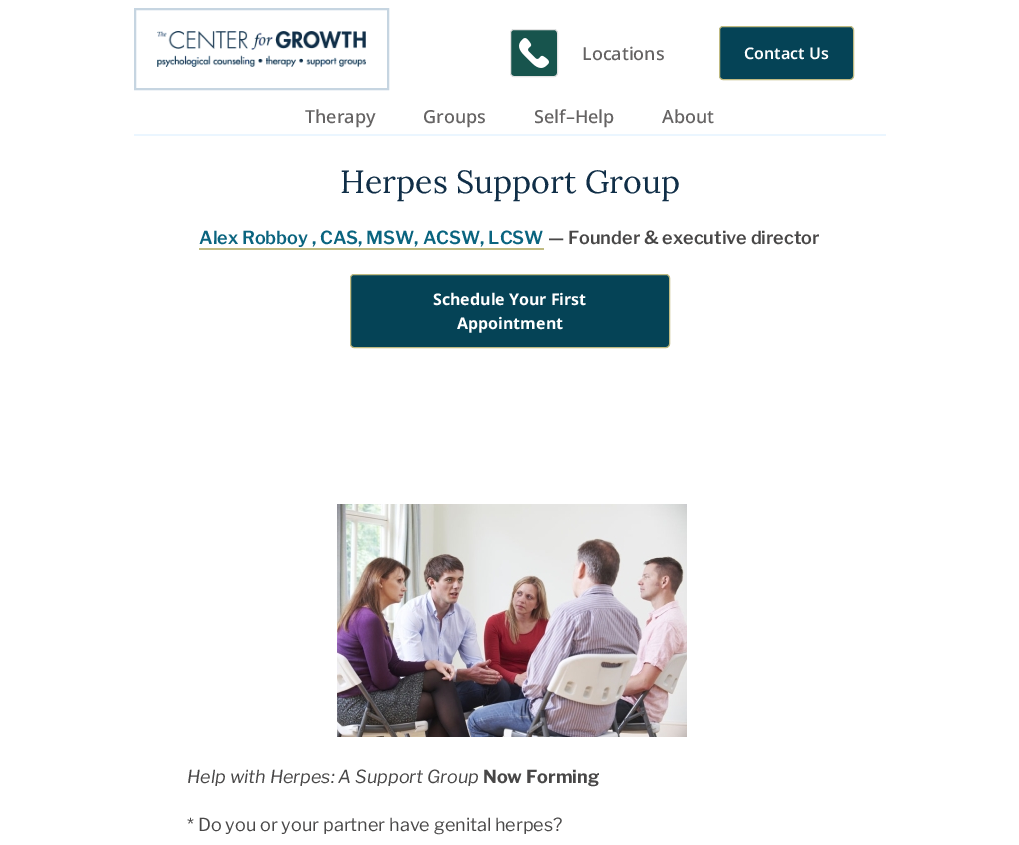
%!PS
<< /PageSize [1019 845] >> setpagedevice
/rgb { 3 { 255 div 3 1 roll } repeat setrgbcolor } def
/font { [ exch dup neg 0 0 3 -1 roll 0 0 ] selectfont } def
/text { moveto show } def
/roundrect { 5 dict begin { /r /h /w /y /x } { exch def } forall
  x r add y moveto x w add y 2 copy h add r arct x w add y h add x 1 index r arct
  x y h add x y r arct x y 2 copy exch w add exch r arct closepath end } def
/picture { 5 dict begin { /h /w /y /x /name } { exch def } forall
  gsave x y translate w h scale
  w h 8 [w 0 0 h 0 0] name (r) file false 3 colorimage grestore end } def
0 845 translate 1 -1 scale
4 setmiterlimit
255 255 255 rgb
0 0 1019 845 rectfill
235 246 255 rgb
134 134 752 2 rectfill
198 213 225 rgb
2 setlinewidth
135 9 253 80 rectstroke
(img_01.rgb) 157 31 209 36 picture
23 84 77 rgb
510.5 29.5 47 47 3.5 roundrect gsave fill grestore
227 227 227 rgb
1 setlinewidth
stroke
(img_02.rgb) 519 38 30 30 picture
5 67 86 rgb
719.5 26.5 134 53 3.5 roundrect gsave fill grestore
192 187 130 rgb
stroke
199 248 345 2 rectfill
5 67 86 rgb
350.5 274.5 319 73 3.5 roundrect gsave fill grestore
192 187 130 rgb
stroke
(img_03.rgb) 337 504 350 233 picture
/NotoSans-Medium 18 font
101 99 99 rgb
(Locations) 582 60 text
/NotoSans-SemiBold 16 font
255 255 255 rgb
(Contact Us) 744 59 text
/NotoSans-Medium 18 font
101 99 99 rgb
(Therapy) 305 123 text
(Groups) 423 123 text
(Self–Help) 534 123 text
(About) 662 123 text
/Lora-Regular 32 font
16 46 71 rgb
(Herpes Support Group) 340 193 text
/LibreFranklin-SemiBold 18 font
10 100 127 rgb
(Alex Robboy , CAS, MSW, ACSW, LCSW) 199 244 text
72 71 71 rgb
(— Founder & executive director) 548 244 text
/NotoSans-Bold 16 font
255 255 255 rgb
(Schedule Your First) 433 305 text
(Appointment) 457 329 text
/LibreFranklin-Italic 18 font
72 71 71 rgb
(Help with Herpes: A Support Group) 187 783 text
/LibreFranklin-Bold 18 font
(Now Forming) 483 783 text
/LibreFranklin-Regular 18 font
(* Do you or your partner have genital herpes?) 187 831 text
showpage
